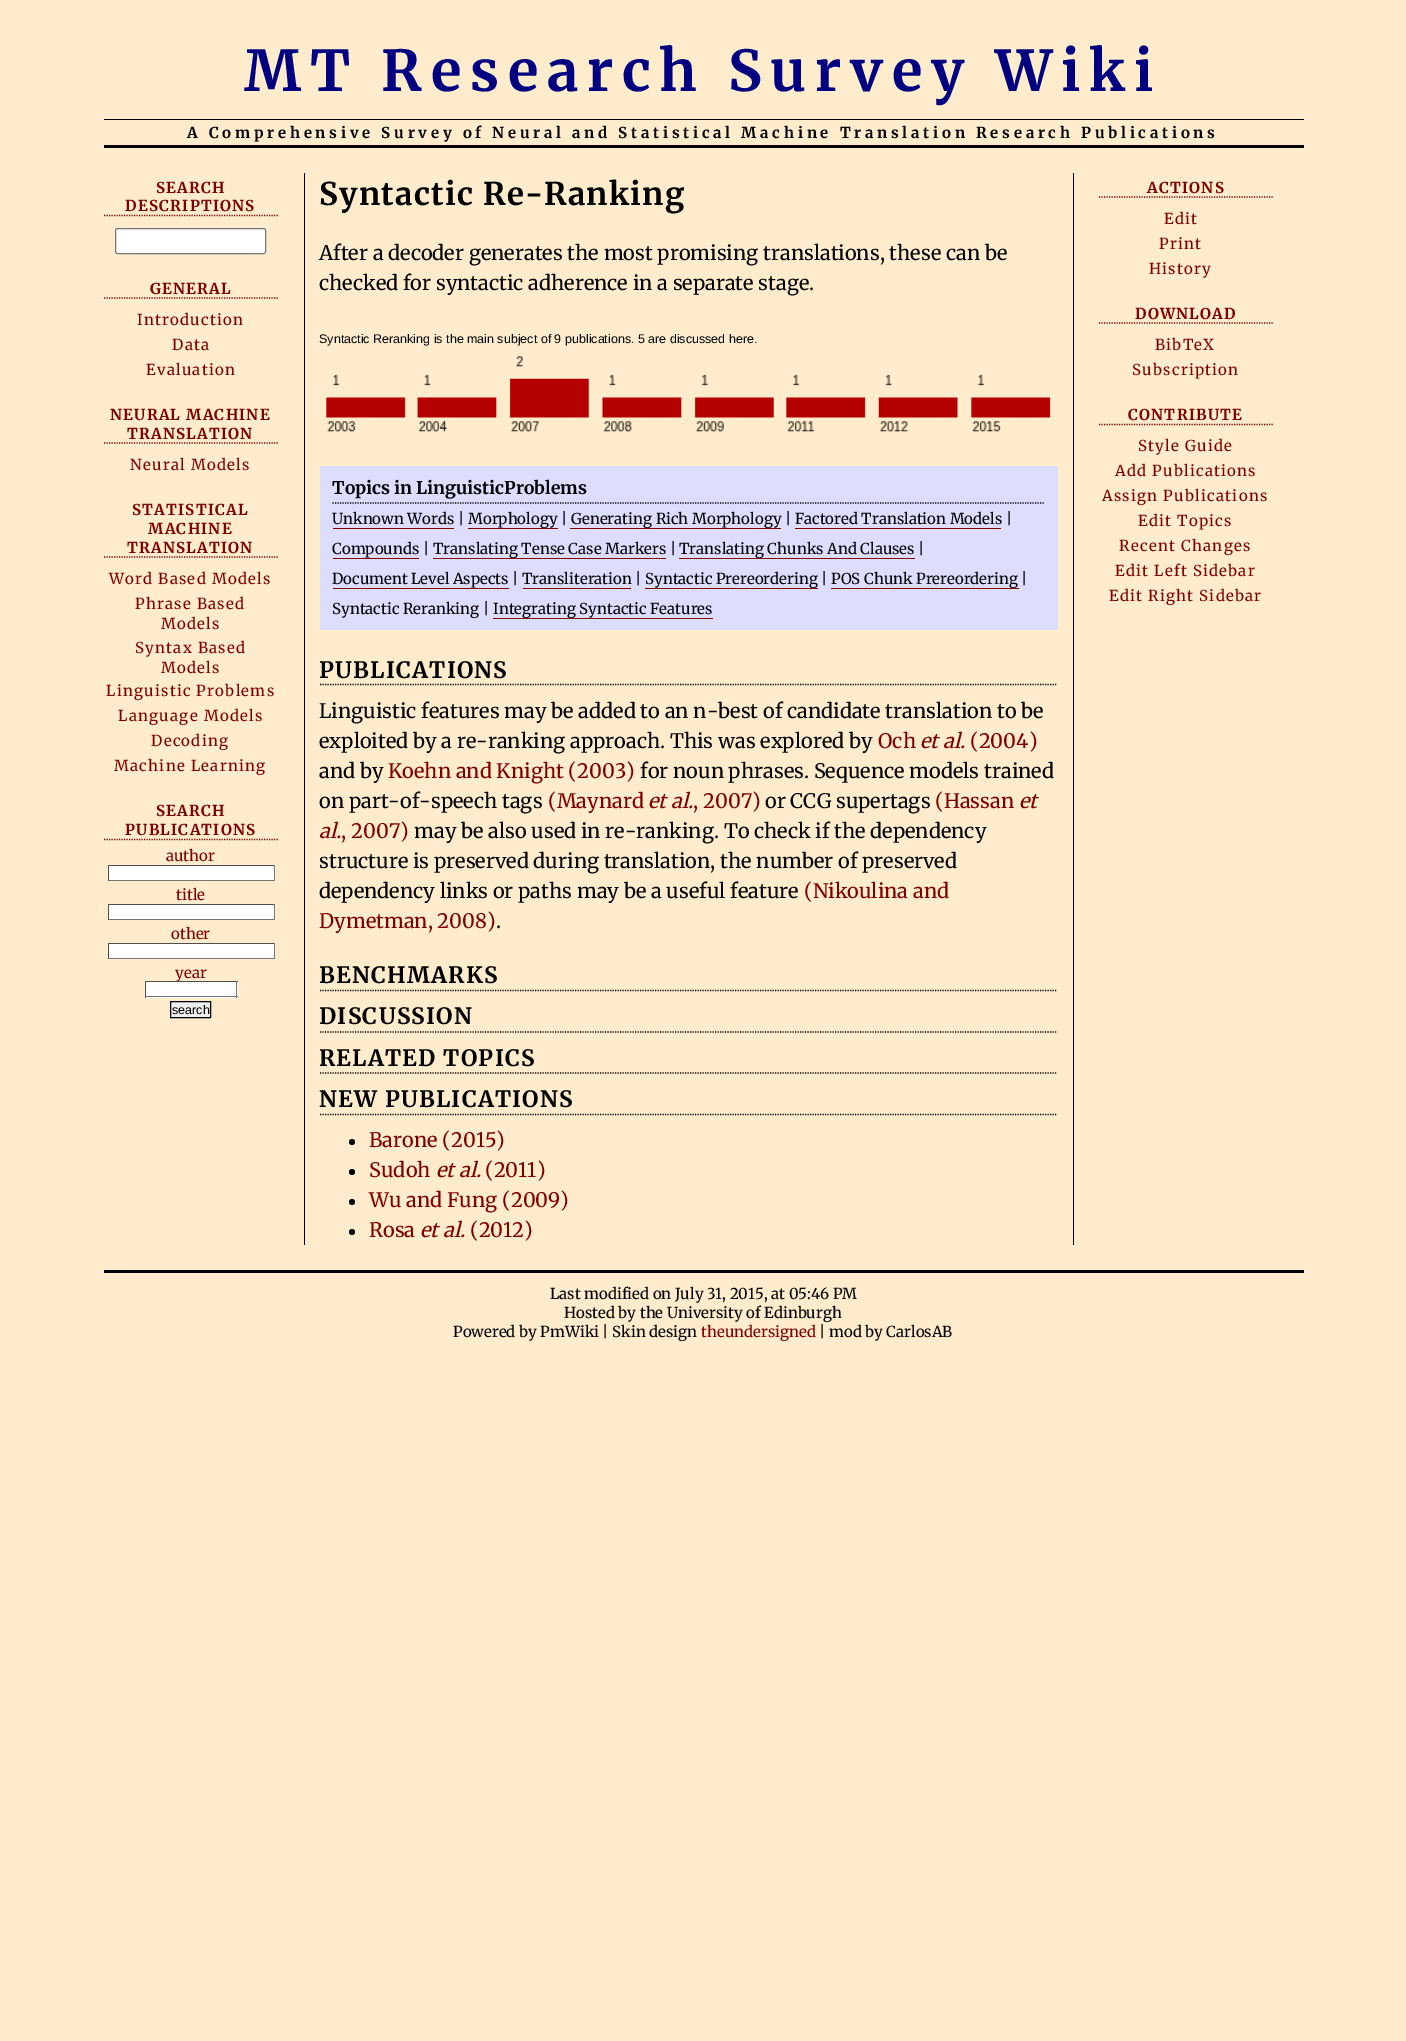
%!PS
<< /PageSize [1406 2041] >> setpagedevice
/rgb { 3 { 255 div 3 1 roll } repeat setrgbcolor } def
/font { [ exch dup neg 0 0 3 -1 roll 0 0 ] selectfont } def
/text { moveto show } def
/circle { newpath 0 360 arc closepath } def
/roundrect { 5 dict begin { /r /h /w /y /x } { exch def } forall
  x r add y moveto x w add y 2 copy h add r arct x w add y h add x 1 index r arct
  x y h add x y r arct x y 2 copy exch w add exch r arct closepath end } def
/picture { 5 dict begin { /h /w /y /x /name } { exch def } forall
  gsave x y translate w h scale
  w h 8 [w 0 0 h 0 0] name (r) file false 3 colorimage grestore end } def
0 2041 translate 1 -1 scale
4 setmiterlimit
255 236 204 rgb
0 0 1406 2041 rectfill
0 0 0 rgb
104 145 1200 3 rectfill
104 119 1200 1 rectfill
128 0 0 rgb
1.2 setlinewidth
[1.25 1.25] 0 setdash
104 215.5 moveto 175 0 rlineto stroke
255 255 255 rgb
115.5 228.5 150 25 2 roundrect gsave fill grestore
118 118 118 rgb
1 setlinewidth
[] 0 setdash
stroke
128 0 0 rgb
1.2 setlinewidth
[1.25 1.25] 0 setdash
104 298 moveto 175 0 rlineto stroke
104 443 moveto 175 0 rlineto stroke
104 557 moveto 175 0 rlineto stroke
104 839.5 moveto 175 0 rlineto stroke
255 255 255 rgb
109 866 165 14 rectfill
79 79 79 rgb
108 865 167 1 rectfill
118 118 118 rgb
274 865 1 16 rectfill
108 880 167 1 rectfill
79 79 79 rgb
108 865 1 16 rectfill
255 255 255 rgb
109 905 165 14 rectfill
79 79 79 rgb
108 904 167 1 rectfill
118 118 118 rgb
274 904 1 16 rectfill
108 919 167 1 rectfill
79 79 79 rgb
108 904 1 16 rectfill
255 255 255 rgb
109 944 165 14 rectfill
79 79 79 rgb
108 943 167 1 rectfill
118 118 118 rgb
274 943 1 16 rectfill
108 958 167 1 rectfill
79 79 79 rgb
108 943 1 16 rectfill
255 255 255 rgb
146 982 92 16 rectfill
239 239 239 rgb
170.5 1001.5 moveto 40 0 rlineto 0 16 rlineto -40 0 rlineto closepath gsave fill grestore
0 0 0 rgb
1 setlinewidth
[] 0 setdash
stroke
1073 173 1 1072 rectfill
304 173 1 1072 rectfill
(img_01.rgb) 326 356 725 76 picture
221 221 255 rgb
320 466 738 164 rectfill
0 0 0 rgb
1.2 setlinewidth
[1.25 1.25] 0 setdash
332.5 503 moveto 712.5 0 rlineto stroke
128 0 0 rgb
333 528 121 1 rectfill
468 528 90 1 rectfill
570 528 211 1 rectfill
333 558 86 1 rectfill
433 558 233 1 rectfill
679 558 236 1 rectfill
333 588 176 1 rectfill
645 588 173 1 rectfill
831 588 188 1 rectfill
523 588 108 1 rectfill
493 618 220 1 rectfill
0 0 0 rgb
320 684.5 moveto 737.5 0 rlineto stroke
320 990.5 moveto 737.5 0 rlineto stroke
320 1032 moveto 737.5 0 rlineto stroke
320 1073 moveto 737.5 0 rlineto stroke
320 1114.5 moveto 737.5 0 rlineto stroke
352 1142 3 circle fill
352 1172 3 circle fill
352 1202 3 circle fill
352 1232 3 circle fill
128 0 0 rgb
1099 197 moveto 175 0 rlineto stroke
1099 323 moveto 175 0 rlineto stroke
1099 424.5 moveto 175 0 rlineto stroke
0 0 0 rgb
104 1270 1200 3 rectfill
/Merriweather-Bold 56.25 font
0 0 128 rgb
244 91 moveto 8.75 0 (MT Research Survey Wiki) ashow
/Merriweather-Bold 15 font
0 0 0 rgb
187 138 moveto 3.75 0 (A Comprehensive Survey of Neural and Statistical Machine Translation Research Publications) ashow
128 0 0 rgb
156 193 moveto 1.25 0 (SEARCH) ashow
125 211 moveto 1.25 0 (DESCRIPTIONS) ashow
150 294 moveto 1.25 0 (GENERAL) ashow
/Merriweather-Regular 15 font
137 325 moveto 1.25 0 (Introduction) ashow
172 350 moveto 1.25 0 (Data) ashow
146 375 moveto 1.25 0 (Evaluation) ashow
/Merriweather-Bold 15 font
110 420 moveto 1.25 0 (NEURAL MACHINE) ashow
127 439 moveto 1.25 0 (TRANSLATION) ashow
/Merriweather-Regular 15 font
130 470 moveto 1.25 0 (Neural Models) ashow
/Merriweather-Bold 15 font
132 515 moveto 1.25 0 (STATISTICAL) ashow
148 534 moveto 1.25 0 (MACHINE) ashow
127 553 moveto 1.25 0 (TRANSLATION) ashow
/Merriweather-Regular 15 font
109 584 moveto 1.25 0 (Word Based Models) ashow
135 609 moveto 1.25 0 (Phrase Based) ashow
161 629 moveto 1.25 0 (Models) ashow
135 653 moveto 1.25 0 (Syntax Based) ashow
161 673 moveto 1.25 0 (Models) ashow
106 696 moveto 1.25 0 (Linguistic Problems) ashow
118 721 moveto 1.25 0 (Language Models) ashow
151 746 moveto 1.25 0 (Decoding) ashow
114 771 moveto 1.25 0 (Machine Learning) ashow
/Merriweather-Bold 15 font
156 816 moveto 1.25 0 (SEARCH) ashow
125 835 moveto 1.25 0 (PUBLICATIONS) ashow
/Merriweather-Regular 15 font
(author) 166 861 text
(title) 176 900 text
(other) 171 939 text
(year) 175 978 text
79 79 79 rgb
145 981 93 1 rectfill
118 118 118 rgb
236 981 1 17 rectfill
145 996 93 1 rectfill
79 79 79 rgb
145 981 1 17 rectfill
/LiberationSans-Regular 12.5 font
0 0 0 rgb
(search) 172 1014 text
/Merriweather-Bold 31.25 font
319 205 moveto 1.25 0 (Syntactic Re-Ranking) ashow
/Merriweather-Regular 20 font
(After a decoder generates the most promising translations, these can be) 319 260 text
(checked for syntactic adherence in a separate stage.) 319 290 text
/LiberationSans-Regular 12.5 font
(Syntactic Reranking is the main subject of 9 publications. 5 are discussed here.) 319 343 text
/Merriweather-Bold 17.5 font
(Topics in LinguisticProblems) 332 494 text
/Merriweather-Regular 15 font
(Unknown Words |) 332 524 text
(Morphology |) 468 524 text
(Generating Rich Morphology | Factored Translation Models |) 571 524 text
128 0 0 rgb
795 528 206 1 rectfill
0 0 0 rgb
(Compounds |) 332 554 text
(Translating Tense Case Markers |) 433 554 text
(Translating Chunks And Clauses |) 679 554 text
(Document Level Aspects | Transliteration |) 332 584 text
(Syntactic Prereordering |) 645 584 text
(POS Chunk Prereordering |) 831 584 text
(Syntactic Reranking |) 332 614 text
(Integrating Syntactic Features) 493 614 text
/Merriweather-Bold 22.5 font
319 678 moveto 1.25 0 (PUBLICATIONS) ashow
/Merriweather-Regular 20 font
(Linguistic features may be added to an n-best of candidate translation to be) 319 718 text
(exploited by a re-ranking approach. This was explored by) 319 748 text
128 0 0 rgb
(Och) 878 748 text
/Merriweather-Italic 20 font
(et al.) 920 748 text
/Merriweather-Regular 20 font
(\(2004\)) 970 748 text
0 0 0 rgb
(and by) 319 778 text
128 0 0 rgb
(Koehn and Knight \(2003\)) 388 778 text
0 0 0 rgb
(for noun phrases. Sequence models trained) 640 778 text
(on part-of-speech tags) 319 808 text
128 0 0 rgb
(\(Maynard) 548 808 text
/Merriweather-Italic 20 font
(et al.) 648 808 text
/Merriweather-Regular 20 font
(, 2007\)) 693 808 text
0 0 0 rgb
(or CCG supertags) 765 808 text
128 0 0 rgb
(\(Hassan) 935 808 text
/Merriweather-Italic 20 font
(et) 1019 808 text
(al.) 319 838 text
/Merriweather-Regular 20 font
(, 2007\)) 341 838 text
0 0 0 rgb
(may be also used in re-ranking. To check if the dependency) 414 838 text
(structure is preserved during translation, the number of preserved) 319 868 text
(dependency links or paths may be a useful feature) 319 898 text
128 0 0 rgb
(\(Nikoulina and) 804 898 text
(Dymetman, 2008\)) 319 928 text
0 0 0 rgb
(.) 496 928 text
/Merriweather-Bold 22.5 font
319 983 moveto 1.25 0 (BENCHMARKS) ashow
319 1024 moveto 1.25 0 (DISCUSSION) ashow
319 1066 moveto 1.25 0 (RELATED TOPICS) ashow
319 1107 moveto 1.25 0 (NEW PUBLICATIONS) ashow
/Merriweather-Regular 20 font
128 0 0 rgb
(Barone \(2015\)) 369 1147 text
(Sudoh) 369 1177 text
/Merriweather-Italic 20 font
(et al.) 436 1177 text
/Merriweather-Regular 20 font
(\(2011\)) 485 1177 text
(Wu and Fung \(2009\)) 369 1207 text
(Rosa) 369 1237 text
/Merriweather-Italic 20 font
(et al.) 420 1237 text
/Merriweather-Regular 20 font
(\(2012\)) 470 1237 text
/Merriweather-Bold 15 font
1147 193 moveto 1.25 0 (ACTIONS) ashow
/Merriweather-Regular 15 font
1164 224 moveto 1.25 0 (Edit) ashow
1159 249 moveto 1.25 0 (Print) ashow
1149 274 moveto 1.25 0 (History) ashow
/Merriweather-Bold 15 font
1135 319 moveto 1.25 0 (DOWNLOAD) ashow
/Merriweather-Regular 15 font
1155 350 moveto 1.25 0 (BibTeX) ashow
1132 375 moveto 1.25 0 (Subscription) ashow
/Merriweather-Bold 15 font
1128 420 moveto 1.25 0 (CONTRIBUTE) ashow
/Merriweather-Regular 15 font
1138 451 moveto 1.25 0 (Style Guide) ashow
1115 476 moveto 1.25 0 (Add Publications) ashow
1102 501 moveto 1.25 0 (Assign Publications) ashow
1138 526 moveto 1.25 0 (Edit Topics) ashow
1119 551 moveto 1.25 0 (Recent Changes) ashow
1115 576 moveto 1.25 0 (Edit Left Sidebar) ashow
1109 601 moveto 1.25 0 (Edit Right Sidebar) ashow
0 0 0 rgb
(Last modified on July 31, 2015, at 05:46 PM) 550 1299 text
(Hosted by the University of Edinburgh) 564 1318 text
(Powered by PmWiki | Skin design) 453 1337 text
128 0 0 rgb
(theundersigned) 701 1337 text
0 0 0 rgb
(| mod by CarlosAB) 819 1337 text
showpage
